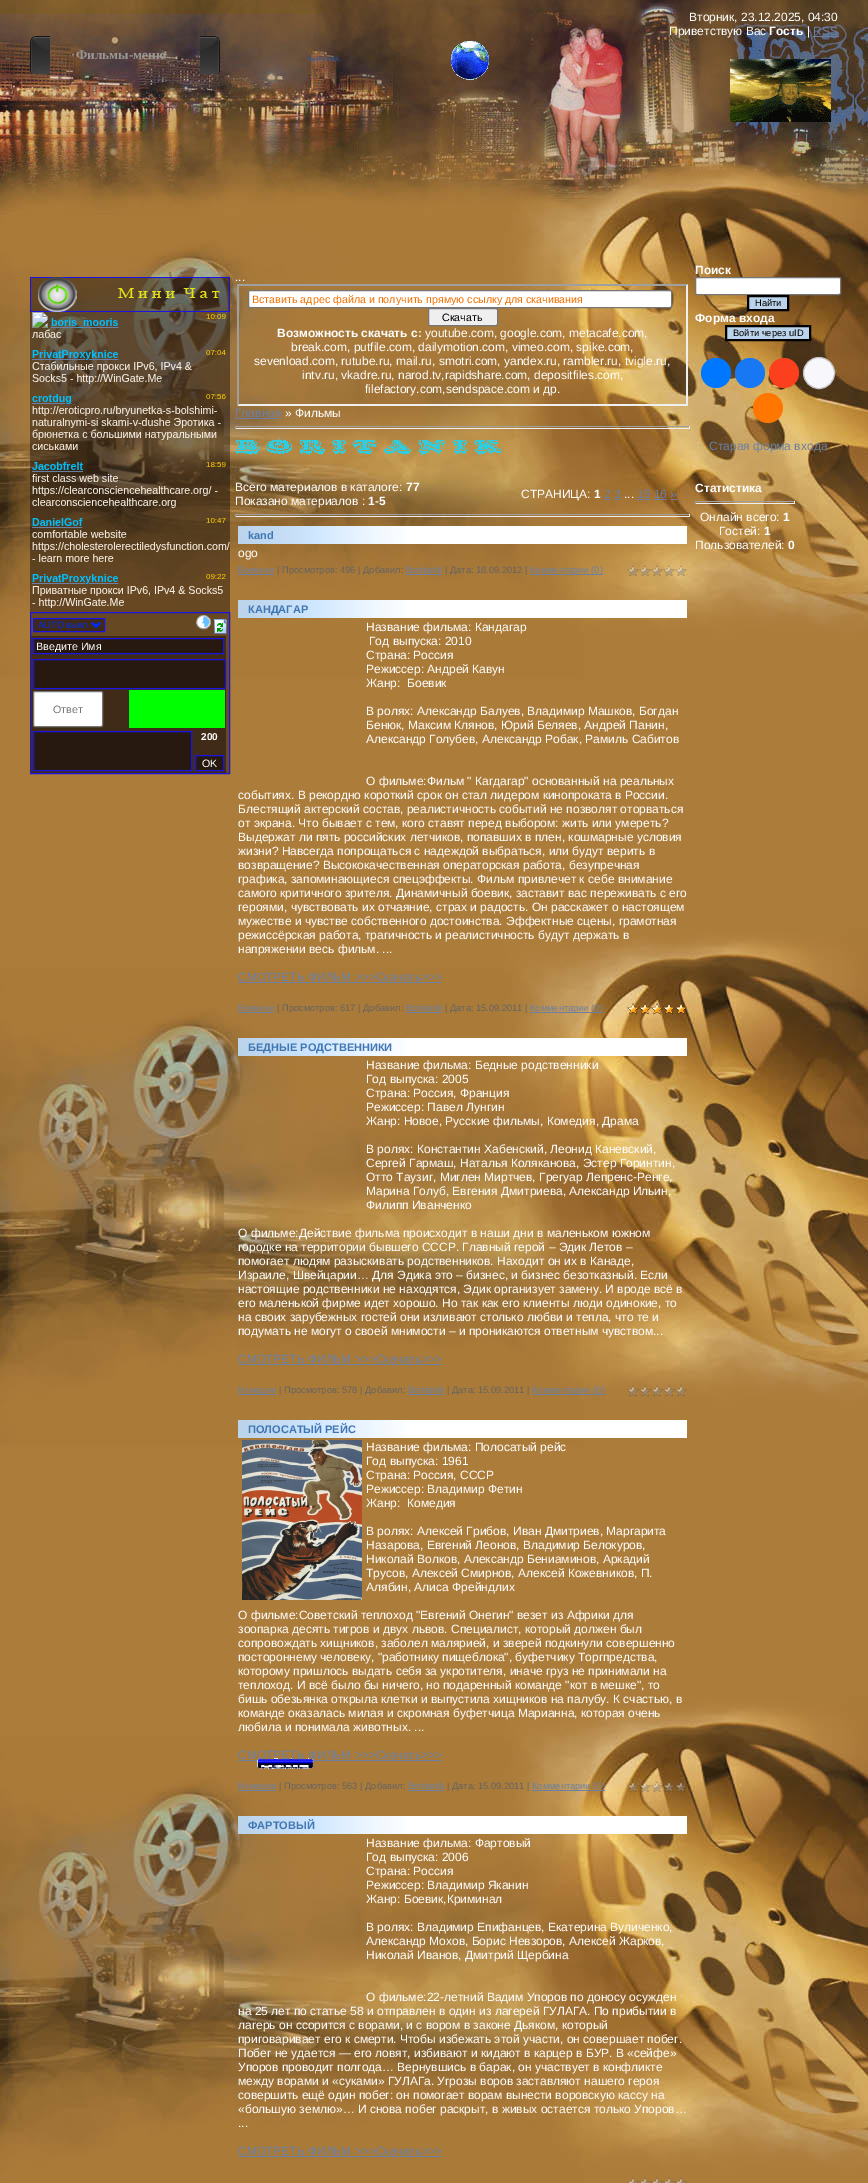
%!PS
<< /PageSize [868 2183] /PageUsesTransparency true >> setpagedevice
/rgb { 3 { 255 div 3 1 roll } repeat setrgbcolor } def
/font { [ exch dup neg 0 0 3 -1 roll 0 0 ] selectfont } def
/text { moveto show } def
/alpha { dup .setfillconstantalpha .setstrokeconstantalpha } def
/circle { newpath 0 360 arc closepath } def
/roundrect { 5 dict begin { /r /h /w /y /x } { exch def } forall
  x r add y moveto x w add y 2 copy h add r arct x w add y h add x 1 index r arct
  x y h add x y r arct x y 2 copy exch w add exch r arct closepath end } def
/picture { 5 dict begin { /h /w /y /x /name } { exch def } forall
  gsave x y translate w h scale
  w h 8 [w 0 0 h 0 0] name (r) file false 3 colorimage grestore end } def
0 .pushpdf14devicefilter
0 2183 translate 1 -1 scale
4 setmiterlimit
255 255 255 rgb
0 0 868 2183 rectfill
(img_01.rgb) 0 156 868 2027 picture
(img_02.rgb) 0 0 868 215 picture
107 128 163 rgb
813 36 25 1 rectfill
(img_03.rgb) 730 59 101 63 picture
(img_04.rgb) 451 41 38 39 picture
(img_06.rgb) 30 277 200 35 picture
(img_07.rgb) 30 312 200 300 picture
0.41 alpha
5 0 5 rgb
30.5 612.5 moveto 199 0 rlineto 0 161 rlineto -199 0 rlineto closepath fill
1 alpha
26 21 228 rgb
30.5 612.5 moveto 199 0 rlineto 0 161 rlineto -199 0 rlineto closepath stroke
(img_08.rgb) 34 619 70 12 picture
33.5 618.5 71 13 rectstroke
0 42 255 rgb
2 setlinewidth
92 622.5 moveto 4 4 rlineto 4 -4 rlineto stroke
(img_09.rgb) 196 615 15 15 picture
(img_10.rgb) 214 619 13 15 picture
63 43 23 rgb
31 636 195 137 rectfill
39 25 16 rgb
33.5 638.5 moveto 190 0 rlineto 0 15 rlineto -190 0 rlineto closepath gsave fill grestore
26 21 228 rgb
1 setlinewidth
stroke
39 25 16 rgb
33 659 193 30 rectfill
26 21 228 rgb
33.5 659.5 192 29 1.5 roundrect stroke
255 255 255 rgb
33.5 691.5 69 35 1.5 roundrect gsave fill grestore
118 118 118 rgb
stroke
0 255 0 rgb
129 690 96 38 rectfill
39 25 16 rgb
33.5 731.5 moveto 158 0 rlineto 0 39 rlineto -158 0 rlineto closepath gsave fill grestore
26 21 228 rgb
stroke
39 25 16 rgb
195.5 755.5 moveto 28 0 rlineto 0 15 rlineto -28 0 rlineto closepath gsave fill grestore
26 21 228 rgb
stroke
159 159 159 rgb
237 284 moveto 451 0 rlineto -2 2 rlineto -447 0 rlineto closepath fill
239 239 239 rgb
688 284 moveto 0 122 rlineto -2 -2 rlineto 0 -118 rlineto closepath fill
688 406 moveto -451 0 rlineto 2 -2 rlineto 447 0 rlineto closepath fill
159 159 159 rgb
237 406 moveto 0 -122 rlineto 2 2 rlineto 0 118 rlineto closepath fill
255 255 255 rgb
248.5 290.5 423 17 1.5 roundrect gsave fill grestore
118 118 118 rgb
stroke
239 239 239 rgb
428.5 308.5 69 17 1.5 roundrect gsave fill grestore
118 118 118 rgb
stroke
107 128 163 rgb
235 418 46 1 rectfill
159 159 159 rgb
235 426 455 1 rectfill
238 238 238 rgb
689 426 1 3 rectfill
235 428 455 1 rectfill
159 159 159 rgb
235 426 1 3 rectfill
(img_11.rgb) 235 439 266 16 picture
107 128 163 rgb
604 499 6 1 rectfill
614 499 6 1 rectfill
637 499 13 1 rectfill
654 499 13 1 rectfill
671 499 6 1 rectfill
159 159 159 rgb
235 514 455 1 rectfill
238 238 238 rgb
689 514 1 3 rectfill
235 516 455 1 rectfill
159 159 159 rgb
235 514 1 3 rectfill
255 255 255 rgb
407 526 280 18 rectfill
(img_12.rgb) 238 526 169 18 picture
107 128 163 rgb
238 574 36 1 rectfill
406 574 36 1 rectfill
530 574 73 1 rectfill
(img_13.rgb) 627 565 60 12 picture
255 255 255 rgb
407 600 280 18 rectfill
(img_12.rgb) 238 600 169 18 picture
107 128 163 rgb
238 982 204 1 rectfill
238 1012 36 1 rectfill
406 1012 36 1 rectfill
530 1012 73 1 rectfill
(img_14.rgb) 627 1003 60 12 picture
(img_15.rgb) 627 1003 60 12 picture
255 255 255 rgb
407 1038 280 18 rectfill
(img_12.rgb) 238 1038 169 18 picture
107 128 163 rgb
238 1364 204 1 rectfill
238 1394 38 1 rectfill
408 1394 36 1 rectfill
532 1394 73 1 rectfill
(img_16.rgb) 627 1385 60 12 picture
255 255 255 rgb
407 1420 280 18 rectfill
(img_12.rgb) 238 1420 169 18 picture
(img_17.rgb) 242 1440 120 160 picture
107 128 163 rgb
238 1760 204 1 rectfill
238 1790 38 1 rectfill
408 1790 36 1 rectfill
532 1790 73 1 rectfill
(img_18.rgb) 627 1781 60 12 picture
255 255 255 rgb
407 1816 280 18 rectfill
(img_12.rgb) 238 1816 169 18 picture
107 128 163 rgb
238 2156 204 1 rectfill
(img_19.rgb) 627 2177 60 6 picture
255 255 255 rgb
695.5 277.5 145 17 1.5 roundrect gsave fill grestore
118 118 118 rgb
stroke
188 212 235 rgb
748 296 moveto 40 0 rlineto 0 14 rlineto -40 0 rlineto closepath gsave fill grestore
0 0 0 rgb
2 setlinewidth
stroke
188 212 235 rgb
726 326 moveto 84 0 rlineto 0 14 rlineto -84 0 rlineto closepath gsave fill grestore
0 0 0 rgb
stroke
0 119 255 rgb
716 373 15 circle fill
24 119 242 rgb
750 373 15 circle fill
252 63 29 rgb
784 373 15 circle fill
248 248 252 rgb
819 373 15.5 circle gsave fill grestore
196 196 196 rgb
1 setlinewidth
stroke
255 119 0 rgb
768 408 15 circle fill
159 159 159 rgb
695 501 100 1 rectfill
238 238 238 rgb
794 501 1 3 rectfill
695 503 100 1 rectfill
159 159 159 rgb
695 501 1 3 rectfill
(img_20.rgb) 30 36 20 38 picture
(img_21.rgb) 200 36 20 38 picture
/LiberationSans-Regular 12 font
255 255 255 rgb
(Вторник, 23.12.2025, 04:30) 689 21 text
(Приветствую Вас) 669 35 text
/LiberationSans-Bold 12 font
(Гость) 769 35 text
/LiberationSans-Regular 12 font
(|) 807 35 text
107 128 163 rgb
(RSS) 813 35 text
/LiberationSerif-Regular 6.5 font
32 91 183 rgb
(BoRiTaNiK) 308 61 text
/LiberationSans-Regular 9.3 font
0 42 255 rgb
(AUTO выкл) 38 628 text
/LiberationSans-Regular 10.7 font
255 255 255 rgb
(Введите Имя) 36 650 text
117 117 117 rgb
(Ответ) 53 713 text
/LiberationSans-Bold 10 font
255 255 255 rgb
(200) 201 740 text
/LiberationSans-Regular 10.7 font
(OK) 202 767 text
/LiberationSans-Regular 12 font
(...) 235 281 text
gsave
252 293 416 12 rectclip
/LiberationSans-Regular 10.7 font
240 112 0 rgb
(Вставить адрес файла и получить прямую ссылку для скачивания) 252 303 text
grestore
/LiberationSans-Regular 10.7 font
0 0 0 rgb
(Скачать) 442 321 text
/LiberationSans-Bold 12 font
255 255 255 rgb
(Возможность скачать с:) 277 337 text
/LiberationSans-Regular 12 font
(youtube.com, google.com, metacafe.com,) 425 337 text
(break.com, putfile.com, dailymotion.com, vimeo.com, spike.com,) 291 351 text
(sevenload.com, rutube.ru, mail.ru, smotri.com, yandex.ru, rambler.ru, tvigle.ru,) 254 365 text
(intv.ru, vkadre.ru, narod.tv,rapidshare.com, depositfiles.com,) 302 379 text
(filefactory.com,sendspace.com и др.) 365 393 text
107 128 163 rgb
(Главная) 235 417 text
255 255 255 rgb
(» Фильмы) 285 417 text
(Всего материалов в каталоге:) 235 491 text
/LiberationSans-Bold 12 font
(77) 406 491 text
/LiberationSans-Regular 12 font
(Показано материалов :) 235 505 text
/LiberationSans-Bold 12 font
(1-5) 368 505 text
/LiberationSans-Regular 12 font
(СTРАНИЦА:) 521 498 text
/LiberationSans-Bold 12 font
(1) 594 498 text
/LiberationSans-Regular 12 font
107 128 163 rgb
(2 3) 604 498 text
255 255 255 rgb
(...) 624 498 text
107 128 163 rgb
(15 16 ») 637 498 text
/LiberationSans-Bold 11 font
63 118 179 rgb
(kand) 248 539 text
/LiberationSans-Regular 12 font
255 255 255 rgb
(ogo) 238 557 text
/LiberationSans-Regular 9.3 font
107 128 163 rgb
(Боевики) 238 573 text
99 99 99 rgb
(| Просмотров: 496 | Добавил:) 277 573 text
107 128 163 rgb
(Boritanik) 406 573 text
99 99 99 rgb
(| Дата: 18.09.2012 |) 445 573 text
107 128 163 rgb
(Комментарии \(0\)) 530 573 text
/LiberationSans-Bold 11 font
63 118 179 rgb
(КАНДАГАР) 248 613 text
/LiberationSans-Regular 12 font
255 255 255 rgb
(Название фильма: Кандагар) 366 631 text
(Год выпуска: 2010) 369 645 text
(Страна: Россия) 366 659 text
(Режиссер: Андрей Кавун) 366 673 text
(Жанр:  Боевик) 366 687 text
(В ролях: Александр Балуев, Владимир Машков, Богдан) 366 715 text
(Бенюк, Максим Клянов, Юрий Беляев, Андрей Панин,) 366 729 text
(Александр Голубев, Александр Робак, Рамиль Сабитов) 366 743 text
(О фильме:Фильм " Кагдагар" основанный на реальных) 366 785 text
(событиях. В рекордно короткий срок он стал лидером кинопроката в России.) 238 799 text
(Блестящий актерский состав, реалистичность событий не позволят оторваться) 238 813 text
(от экрана. Что бывает с тем, кого ставят перед выбором: жить или умереть?) 238 827 text
(Выдержат ли пять российских летчиков, попавших в плен, кошмарные условия) 238 841 text
(жизни? Навсегда попрощаться с надеждой выбраться, или будут верить в) 238 855 text
(возвращение? Высококачественная операторская работа, безупречная) 238 869 text
(графика, запоминающиеся спецэффекты. Фильм привлечет к себе внимание) 238 883 text
(самого критичного зрителя. Динамичный боевик, заставит вас переживать с его) 238 897 text
(героями, чувствовать их отчаяние, страх и радость. Он расскажет о настоящем) 238 911 text
(мужестве и чувстве собственного достоинства. Эффектные сцены, грамотная) 238 925 text
(режиссёрская работа, трагичность и реалистичность будут держать в) 238 939 text
(напряжении весь фильм. ...) 238 953 text
107 128 163 rgb
(СМОТРЕТЬ ФИЛЬМ >>>Скачать>>>) 238 981 text
/LiberationSans-Regular 9.3 font
(Боевики) 238 1011 text
99 99 99 rgb
(| Просмотров: 617 | Добавил:) 277 1011 text
107 128 163 rgb
(Boritanik) 406 1011 text
99 99 99 rgb
(| Дата: 15.09.2011 |) 445 1011 text
107 128 163 rgb
(Комментарии \(0\)) 530 1011 text
/LiberationSans-Bold 11 font
63 118 179 rgb
(БЕДНЫЕ РОДСТВЕННИКИ) 248 1051 text
/LiberationSans-Regular 12 font
255 255 255 rgb
(Название фильма: Бедные родственники) 366 1069 text
(Год выпуска: 2005) 366 1083 text
(Страна: Россия, Франция) 366 1097 text
(Режиссер: Павел Лунгин) 366 1111 text
(Жанр: Новое, Русские фильмы, Комедия, Драма) 366 1125 text
(В ролях: Константин Хабенский, Леонид Каневский,) 366 1153 text
(Сергей Гармаш, Наталья Коляканова, Эстер Горинтин,) 366 1167 text
(Отто Таузиг, Миглен Миртчев, Грегуар Лепренс-Ренге,) 366 1181 text
(Марина Голуб, Евгения Дмитриева, Александр Ильин,) 366 1195 text
(Филипп Иванченко) 366 1209 text
(О фильме:Действие фильма происходит в наши дни в маленьком южном) 238 1237 text
(городке на территории бывшего СССР. Главный герой – Эдик Летов –) 238 1251 text
(помогает людям разыскивать родственников. Находит он их в Канаде,) 238 1265 text
(Израиле, Швейцарии… Для Эдика это – бизнес, и бизнес безотказный. Если) 238 1279 text
(настоящие родственники не находятся, Эдик организует замену. И вроде всё в) 238 1293 text
(его маленькой фирме идет хорошо. Но так как его клиенты люди одинокие, то) 238 1307 text
(на своих зарубежных гостей они изливают столько любви и тепла, что те и) 238 1321 text
(подумать не могут о своей мнимости – и проникаются ответным чувством...) 238 1335 text
107 128 163 rgb
(СМОТРЕТЬ ФИЛЬМ >>>Скачать>>>) 238 1363 text
/LiberationSans-Regular 9.3 font
(Комедии) 238 1393 text
99 99 99 rgb
(| Просмотров: 578 | Добавил:) 279 1393 text
107 128 163 rgb
(Boritanik) 408 1393 text
99 99 99 rgb
(| Дата: 15.09.2011 |) 447 1393 text
107 128 163 rgb
(Комментарии \(0\)) 532 1393 text
/LiberationSans-Bold 11 font
63 118 179 rgb
(ПОЛОСАТЫЙ РЕЙС) 248 1433 text
/LiberationSans-Regular 12 font
255 255 255 rgb
(Название фильма: Полосатый рейс) 366 1451 text
(Год выпуска: 1961) 366 1465 text
(Страна: Россия, СССР) 366 1479 text
(Режиссер: Владимир Фетин) 366 1493 text
(Жанр:  Комедия) 366 1507 text
(В ролях: Алексей Грибов, Иван Дмитриев, Маргарита) 366 1535 text
(Назарова, Евгений Леонов, Владимир Белокуров,) 366 1549 text
(Николай Волков, Александр Бениаминов, Аркадий) 366 1563 text
(Трусов, Алексей Смирнов, Алексей Кожевников, П.) 366 1577 text
(Алябин, Алиса Фрейндлих) 366 1591 text
(О фильме:Советский теплоход "Евгений Онегин" везет из Африки для) 238 1619 text
(зоопарка десять тигров и двух львов. Специалист, который должен был) 238 1633 text
(сопровождать хищников, заболел малярией, и зверей подкинули совершенно) 238 1647 text
(постороннему человеку, "работнику пищеблока", буфетчику Торгпредства,) 238 1661 text
(которому пришлось выдать себя за укротителя, иначе груз не принимали на) 238 1675 text
(теплоход. И всё было бы ничего, но подаренный команде "кот в мешке", то) 238 1689 text
(бишь обезьянка открыла клетки и выпустила хищников на палубу. К счастью, в) 238 1703 text
(команде оказалась милая и скромная буфетчица Марианна, которая очень) 238 1717 text
(любила и понимала животных. ...) 238 1731 text
107 128 163 rgb
(СМОТРЕТЬ ФИЛЬМ >>>Скачать>>>) 238 1759 text
(img_05.rgb) 257 1758 56 11 picture
/LiberationSans-Regular 9.3 font
(Комедии) 238 1789 text
99 99 99 rgb
(| Просмотров: 563 | Добавил:) 279 1789 text
107 128 163 rgb
(Boritanik) 408 1789 text
99 99 99 rgb
(| Дата: 15.09.2011 |) 447 1789 text
107 128 163 rgb
(Комментарии \(0\)) 532 1789 text
/LiberationSans-Bold 11 font
63 118 179 rgb
(ФАРТОВЫЙ) 248 1829 text
/LiberationSans-Regular 12 font
255 255 255 rgb
(Название фильма: Фартовый) 366 1847 text
(Год выпуска: 2006) 366 1861 text
(Страна: Россия) 366 1875 text
(Режиссер: Владимир Яканин) 366 1889 text
(Жанр: Боевик,Криминал) 366 1903 text
(В ролях: Владимир Епифанцев, Екатерина Вуличенко,) 366 1931 text
(Александр Мохов, Борис Невзоров, Алексей Жарков,) 366 1945 text
(Николай Иванов, Дмитрий Щербина) 366 1959 text
(О фильме:22-летний Вадим Упоров по доносу осужден) 366 2001 text
(на 25 лет по статье 58 и отправлен в один из лагерей ГУЛАГА. По прибытии в) 238 2015 text
(лагерь он ссорится с ворами, и с вором в законе Дьяком, который) 238 2029 text
(приговаривает его к смерти. Чтобы избежать этой участи, он совершает побег.) 238 2043 text
(Побег не удается — его ловят, избивают и кидают в карцер в БУР. В «сейфе») 238 2057 text
(Упоров проводит полгода… Вернувшись в барак, он участвует в конфликте) 238 2071 text
(между ворами и «суками» ГУЛАГа. Угрозы воров заставляют нашего героя) 238 2085 text
(совершить ещё один побег: он помогает ворам вынести воровскую кассу на) 238 2099 text
(«большую землю»… И снова побег раскрыт, в живых остается только Упоров…) 238 2113 text
(...) 238 2127 text
107 128 163 rgb
(СМОТРЕТЬ ФИЛЬМ >>>Скачать>>>) 238 2155 text
/LiberationSans-Bold 12 font
255 255 255 rgb
(Поиск) 695 274 text
/LiberationSans-Regular 9.3 font
0 0 0 rgb
(Найти) 755 306 text
/LiberationSans-Bold 12 font
255 255 255 rgb
(Форма входа) 695 322 text
/LiberationSans-Regular 9.3 font
0 0 0 rgb
(Войти через uID) 733 336 text
/LiberationSans-Regular 12 font
107 128 163 rgb
(Старая форма входа) 709 450 text
/LiberationSans-Bold 12 font
255 255 255 rgb
(Статистика) 695 492 text
/LiberationSans-Regular 12 font
(Онлайн всего:) 700 521 text
/LiberationSans-Bold 12 font
(1) 783 521 text
/LiberationSans-Regular 12 font
(Гостей:) 719 535 text
/LiberationSans-Bold 12 font
(1) 764 535 text
/LiberationSans-Regular 12 font
(Пользователей:) 695 549 text
/LiberationSans-Bold 12 font
(0) 788 549 text
/LiberationSerif-Bold 13.25 font
153 153 153 rgb
(Фильмы-меню) 76 59 text
.poppdf14devicefilter showpage
